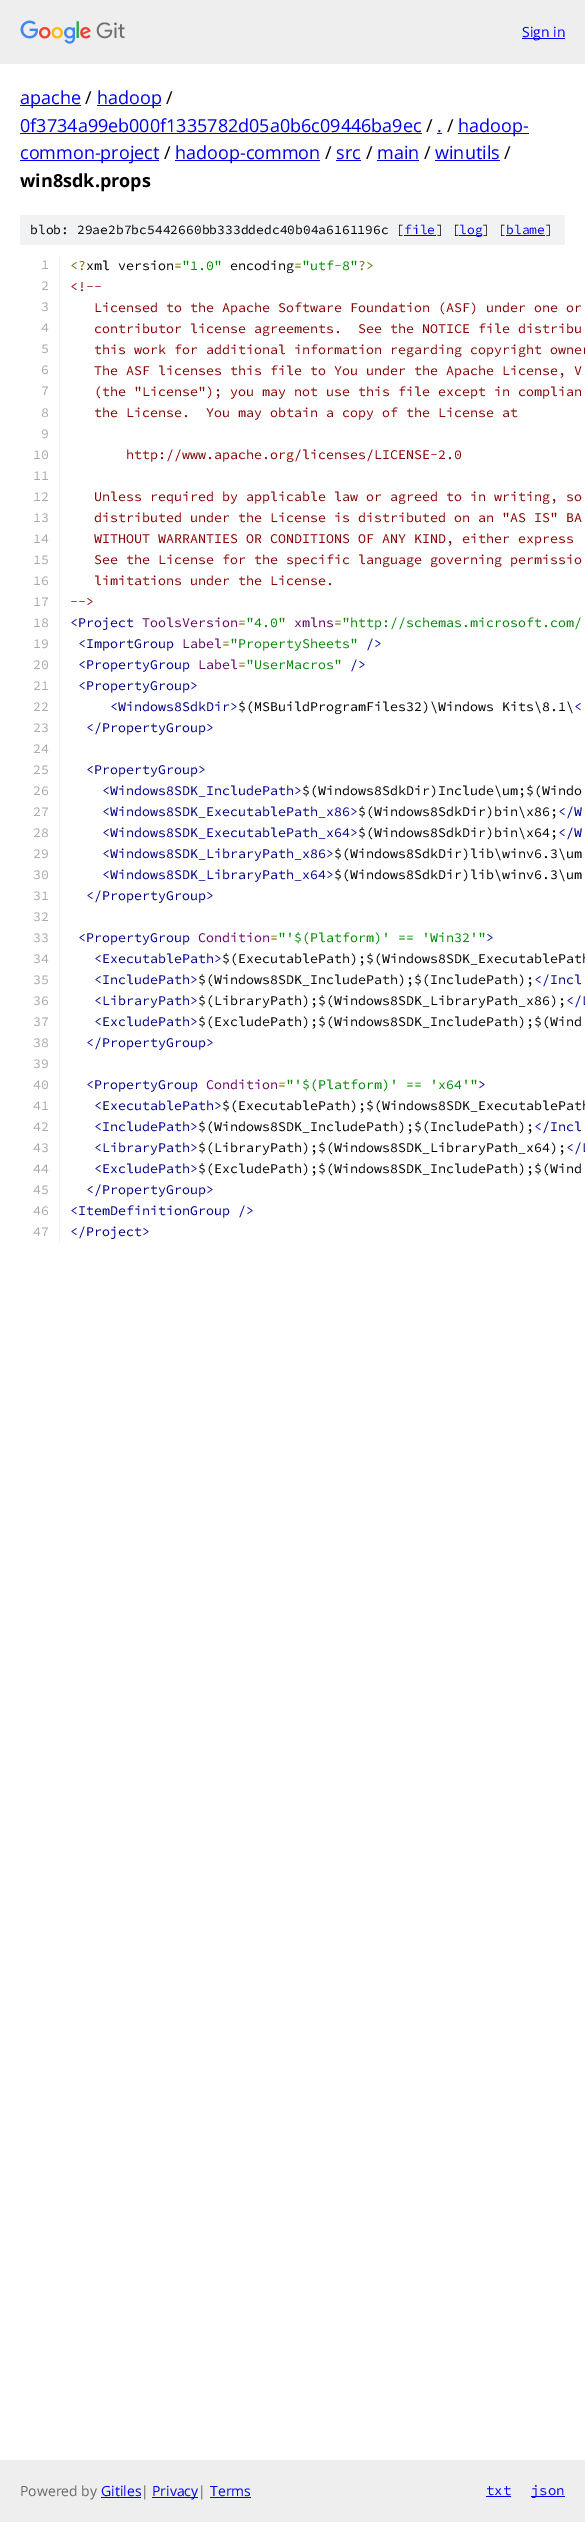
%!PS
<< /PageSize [585 2522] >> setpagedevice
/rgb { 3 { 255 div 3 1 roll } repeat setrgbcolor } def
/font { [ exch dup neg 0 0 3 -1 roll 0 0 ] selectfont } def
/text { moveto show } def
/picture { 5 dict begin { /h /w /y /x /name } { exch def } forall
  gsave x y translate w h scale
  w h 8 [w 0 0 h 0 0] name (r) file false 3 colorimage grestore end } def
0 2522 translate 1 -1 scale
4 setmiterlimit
255 255 255 rgb
0 0 585 2522 rectfill
238 238 238 rgb
0 0 585 64 rectfill
(img_01.rgb) 20 20 105 24 picture
0 0 238 rgb
522 38 43 1 rectfill
20 105 61 1 rectfill
97 105 64 1 rectfill
20 133 402 1 rectfill
437 133 5 1 rectfill
458 133 71 1 rectfill
20 160 139 1 rectfill
175 160 145 1 rectfill
336 160 25 1 rectfill
377 160 42 1 rectfill
435 160 65 1 rectfill
241 242 243 rgb
20 215 545 30 rectfill
0 0 238 rgb
404 235 32 1 rectfill
459 235 23 1 rectfill
506 235 39 1 rectfill
241 242 243 rgb
59 255 1 147 rectfill
59 403 1 20 rectfill
59 424 1 20 rectfill
59 445 1 20 rectfill
59 466 1 20 rectfill
59 487 1 20 rectfill
59 508 1 20 rectfill
59 529 1 20 rectfill
59 550 1 20 rectfill
59 571 1 20 rectfill
59 592 1 20 rectfill
59 613 1 20 rectfill
59 634 1 20 rectfill
59 655 1 20 rectfill
59 676 1 20 rectfill
59 697 1 20 rectfill
59 718 1 20 rectfill
59 739 1 20 rectfill
59 760 1 20 rectfill
59 781 1 20 rectfill
59 802 1 20 rectfill
59 823 1 20 rectfill
59 844 1 20 rectfill
59 865 1 20 rectfill
59 886 1 20 rectfill
59 907 1 20 rectfill
59 928 1 20 rectfill
59 949 1 20 rectfill
59 970 1 20 rectfill
59 991 1 20 rectfill
59 1012 1 20 rectfill
59 1033 1 20 rectfill
59 1054 1 189 rectfill
238 238 238 rgb
0 2460 585 62 rectfill
0 0 238 rgb
101 2497 40 1 rectfill
152 2497 46 1 rectfill
210 2497 41 1 rectfill
486 2496 25 1 rectfill
531 2496 34 1 rectfill
/OpenSans-Regular 14 font
(Sign in) 522 37 text
/OpenSans-Regular 18 font
(apache) 20 104 text
0 0 0 rgb
(/) 85 104 text
0 0 238 rgb
(hadoop) 97 104 text
0 0 0 rgb
(/) 166 104 text
0 0 238 rgb
(0f3734a99eb000f1335782d05a0b6c09446ba9ec) 20 132 text
0 0 0 rgb
(/) 426 132 text
0 0 238 rgb
(.) 437 132 text
0 0 0 rgb
(/) 447 132 text
0 0 238 rgb
(hadoop-) 458 132 text
(common-project) 20 159 text
0 0 0 rgb
(/) 164 159 text
0 0 238 rgb
(hadoop-common) 175 159 text
0 0 0 rgb
(/) 325 159 text
0 0 238 rgb
(src) 336 159 text
0 0 0 rgb
(/) 366 159 text
0 0 238 rgb
(main) 377 159 text
0 0 0 rgb
(/) 424 159 text
0 0 238 rgb
(winutils) 435 159 text
0 0 0 rgb
(/) 504 159 text
/OpenSans-Bold 18 font
(win8sdk.props) 20 187 text
/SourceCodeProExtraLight-ExtraLight 13 font
(blob: 29ae2b7bc5442660bb333ddedc40b04a6161196c [) 30 234 text
0 0 238 rgb
(file) 404 234 text
0 0 0 rgb
(] [) 436 234 text
0 0 238 rgb
(log) 459 234 text
0 0 0 rgb
(] [) 482 234 text
0 0 238 rgb
(blame) 506 234 text
0 0 0 rgb
(]) 545 234 text
/SourceCodeProExtraLight-ExtraLight 13.35 font
170 170 170 rgb
(1) 41 269 text
102 102 0 rgb
(<?) 70 270 text
0 0 0 rgb
(xml version) 86 270 text
102 102 0 rgb
(=) 174 270 text
0 136 0 rgb
("1.0") 182 270 text
0 0 0 rgb
(encoding) 230 270 text
102 102 0 rgb
(=) 294 270 text
0 136 0 rgb
("utf-8") 302 270 text
102 102 0 rgb
(?>) 358 270 text
170 170 170 rgb
(2) 41 290 text
136 0 0 rgb
(<!--) 70 291 text
170 170 170 rgb
(3) 41 311 text
136 0 0 rgb
(Licensed to the Apache Software Foundation \(ASF\) under one or) 94 312 text
170 170 170 rgb
(4) 41 332 text
136 0 0 rgb
(contributor license agreements.  See the NOTICE file distribu) 94 333 text
170 170 170 rgb
(5) 41 353 text
136 0 0 rgb
(this work for additional information regarding copyright owner) 94 354 text
170 170 170 rgb
(6) 41 374 text
136 0 0 rgb
(The ASF licenses this file to You under the Apache License, V) 94 375 text
170 170 170 rgb
(7) 41 395 text
136 0 0 rgb
(\(the "License"\); you may not use this file except in complian) 94 396 text
170 170 170 rgb
(8) 41 417 text
136 0 0 rgb
(the License.  You may obtain a copy of the License at) 94 417 text
170 170 170 rgb
(9) 41 438 text
(10) 33 459 text
136 0 0 rgb
(http://www.apache.org/licenses/LICENSE-2.0) 126 459 text
170 170 170 rgb
(11) 33 480 text
(12) 33 501 text
136 0 0 rgb
(Unless required by applicable law or agreed to in writing, so) 94 501 text
170 170 170 rgb
(13) 33 522 text
136 0 0 rgb
(distributed under the License is distributed on an "AS IS" BA) 94 522 text
170 170 170 rgb
(14) 33 543 text
136 0 0 rgb
(WITHOUT WARRANTIES OR CONDITIONS OF ANY KIND, either express) 94 543 text
170 170 170 rgb
(15) 33 564 text
136 0 0 rgb
(See the License for the specific language governing permissio) 94 564 text
170 170 170 rgb
(16) 33 585 text
136 0 0 rgb
(limitations under the License.) 94 585 text
170 170 170 rgb
(17) 33 606 text
136 0 0 rgb
(-->) 70 606 text
170 170 170 rgb
(18) 33 627 text
0 0 136 rgb
(<Project) 70 627 text
102 0 102 rgb
(ToolsVersion) 142 627 text
102 102 0 rgb
(=) 238 627 text
0 136 0 rgb
("4.0") 246 627 text
102 0 102 rgb
(xmlns) 294 627 text
102 102 0 rgb
(=) 334 627 text
0 136 0 rgb
("http://schemas.microsoft.com/) 342 627 text
170 170 170 rgb
(19) 33 648 text
0 0 136 rgb
(<ImportGroup) 78 648 text
102 0 102 rgb
(Label) 182 648 text
102 102 0 rgb
(=) 222 648 text
0 136 0 rgb
("PropertySheets") 230 648 text
0 0 136 rgb
(/>) 366 648 text
170 170 170 rgb
(20) 33 669 text
0 0 136 rgb
(<PropertyGroup) 78 669 text
102 0 102 rgb
(Label) 198 669 text
102 102 0 rgb
(=) 238 669 text
0 136 0 rgb
("UserMacros") 246 669 text
0 0 136 rgb
(/>) 350 669 text
170 170 170 rgb
(21) 33 690 text
0 0 136 rgb
(<PropertyGroup>) 78 690 text
170 170 170 rgb
(22) 33 711 text
0 0 136 rgb
(<Windows8SdkDir>) 110 711 text
0 0 0 rgb
($\(MSBuildProgramFiles32\)\\Windows Kits\\8.1\\) 238 711 text
0 0 136 rgb
(<) 574 711 text
170 170 170 rgb
(23) 33 732 text
0 0 136 rgb
(</PropertyGroup>) 86 732 text
170 170 170 rgb
(24) 33 753 text
(25) 33 774 text
0 0 136 rgb
(<PropertyGroup>) 86 774 text
170 170 170 rgb
(26) 33 795 text
0 0 136 rgb
(<Windows8SDK_IncludePath>) 102 795 text
0 0 0 rgb
($\(Windows8SdkDir\)Include\\um;$\(Windo) 302 795 text
170 170 170 rgb
(27) 33 816 text
0 0 136 rgb
(<Windows8SDK_ExecutablePath_x86>) 102 816 text
0 0 0 rgb
($\(Windows8SdkDir\)bin\\x86;) 358 816 text
0 0 136 rgb
(</W) 558 816 text
170 170 170 rgb
(28) 33 837 text
0 0 136 rgb
(<Windows8SDK_ExecutablePath_x64>) 102 837 text
0 0 0 rgb
($\(Windows8SdkDir\)bin\\x64;) 358 837 text
0 0 136 rgb
(</W) 558 837 text
170 170 170 rgb
(29) 33 858 text
0 0 136 rgb
(<Windows8SDK_LibraryPath_x86>) 102 858 text
0 0 0 rgb
($\(Windows8SdkDir\)lib\\winv6.3\\um) 334 858 text
170 170 170 rgb
(30) 33 879 text
0 0 136 rgb
(<Windows8SDK_LibraryPath_x64>) 102 879 text
0 0 0 rgb
($\(Windows8SdkDir\)lib\\winv6.3\\um) 334 879 text
170 170 170 rgb
(31) 33 900 text
0 0 136 rgb
(</PropertyGroup>) 86 900 text
170 170 170 rgb
(32) 33 921 text
(33) 33 942 text
0 0 136 rgb
(<PropertyGroup) 78 942 text
102 0 102 rgb
(Condition) 198 942 text
102 102 0 rgb
(=) 270 942 text
0 136 0 rgb
("'$\(Platform\)' == 'Win32'") 278 942 text
0 0 136 rgb
(>) 486 942 text
170 170 170 rgb
(34) 33 963 text
0 0 136 rgb
(<ExecutablePath>) 94 963 text
0 0 0 rgb
($\(ExecutablePath\);$\(Windows8SDK_ExecutablePath) 222 963 text
170 170 170 rgb
(35) 33 984 text
0 0 136 rgb
(<IncludePath>) 94 984 text
0 0 0 rgb
($\(Windows8SDK_IncludePath\);$\(IncludePath\);) 198 984 text
0 0 136 rgb
(</Incl) 534 984 text
170 170 170 rgb
(36) 33 1005 text
0 0 136 rgb
(<LibraryPath>) 94 1005 text
0 0 0 rgb
($\(LibraryPath\);$\(Windows8SDK_LibraryPath_x86\);) 198 1005 text
0 0 136 rgb
(</L) 566 1005 text
170 170 170 rgb
(37) 33 1026 text
0 0 136 rgb
(<ExcludePath>) 94 1026 text
0 0 0 rgb
($\(ExcludePath\);$\(Windows8SDK_IncludePath\);$\(Wind) 198 1026 text
170 170 170 rgb
(38) 33 1047 text
0 0 136 rgb
(</PropertyGroup>) 86 1047 text
170 170 170 rgb
(39) 33 1068 text
(40) 33 1089 text
0 0 136 rgb
(<PropertyGroup) 86 1089 text
102 0 102 rgb
(Condition) 206 1089 text
102 102 0 rgb
(=) 278 1089 text
0 136 0 rgb
("'$\(Platform\)' == 'x64'") 286 1089 text
0 0 136 rgb
(>) 478 1089 text
170 170 170 rgb
(41) 33 1110 text
0 0 136 rgb
(<ExecutablePath>) 94 1110 text
0 0 0 rgb
($\(ExecutablePath\);$\(Windows8SDK_ExecutablePath) 222 1110 text
170 170 170 rgb
(42) 33 1131 text
0 0 136 rgb
(<IncludePath>) 94 1131 text
0 0 0 rgb
($\(Windows8SDK_IncludePath\);$\(IncludePath\);) 198 1131 text
0 0 136 rgb
(</Incl) 534 1131 text
170 170 170 rgb
(43) 33 1152 text
0 0 136 rgb
(<LibraryPath>) 94 1152 text
0 0 0 rgb
($\(LibraryPath\);$\(Windows8SDK_LibraryPath_x64\);) 198 1152 text
0 0 136 rgb
(</L) 566 1152 text
170 170 170 rgb
(44) 33 1173 text
0 0 136 rgb
(<ExcludePath>) 94 1173 text
0 0 0 rgb
($\(ExcludePath\);$\(Windows8SDK_IncludePath\);$\(Wind) 198 1173 text
170 170 170 rgb
(45) 33 1194 text
0 0 136 rgb
(</PropertyGroup>) 86 1194 text
170 170 170 rgb
(46) 33 1215 text
0 0 136 rgb
(<ItemDefinitionGroup />) 70 1215 text
170 170 170 rgb
(47) 33 1236 text
0 0 136 rgb
(</Project>) 70 1236 text
/OpenSans-Regular 14 font
102 102 102 rgb
(Powered by) 20 2496 text
0 0 238 rgb
(Gitiles) 101 2496 text
102 102 102 rgb
(|) 141 2496 text
0 0 238 rgb
(Privacy) 152 2496 text
102 102 102 rgb
(|) 198 2496 text
0 0 238 rgb
(Terms) 210 2496 text
/SourceCodeProExtraLight-ExtraLight 14 font
(txt) 486 2495 text
(json) 531 2495 text
showpage
